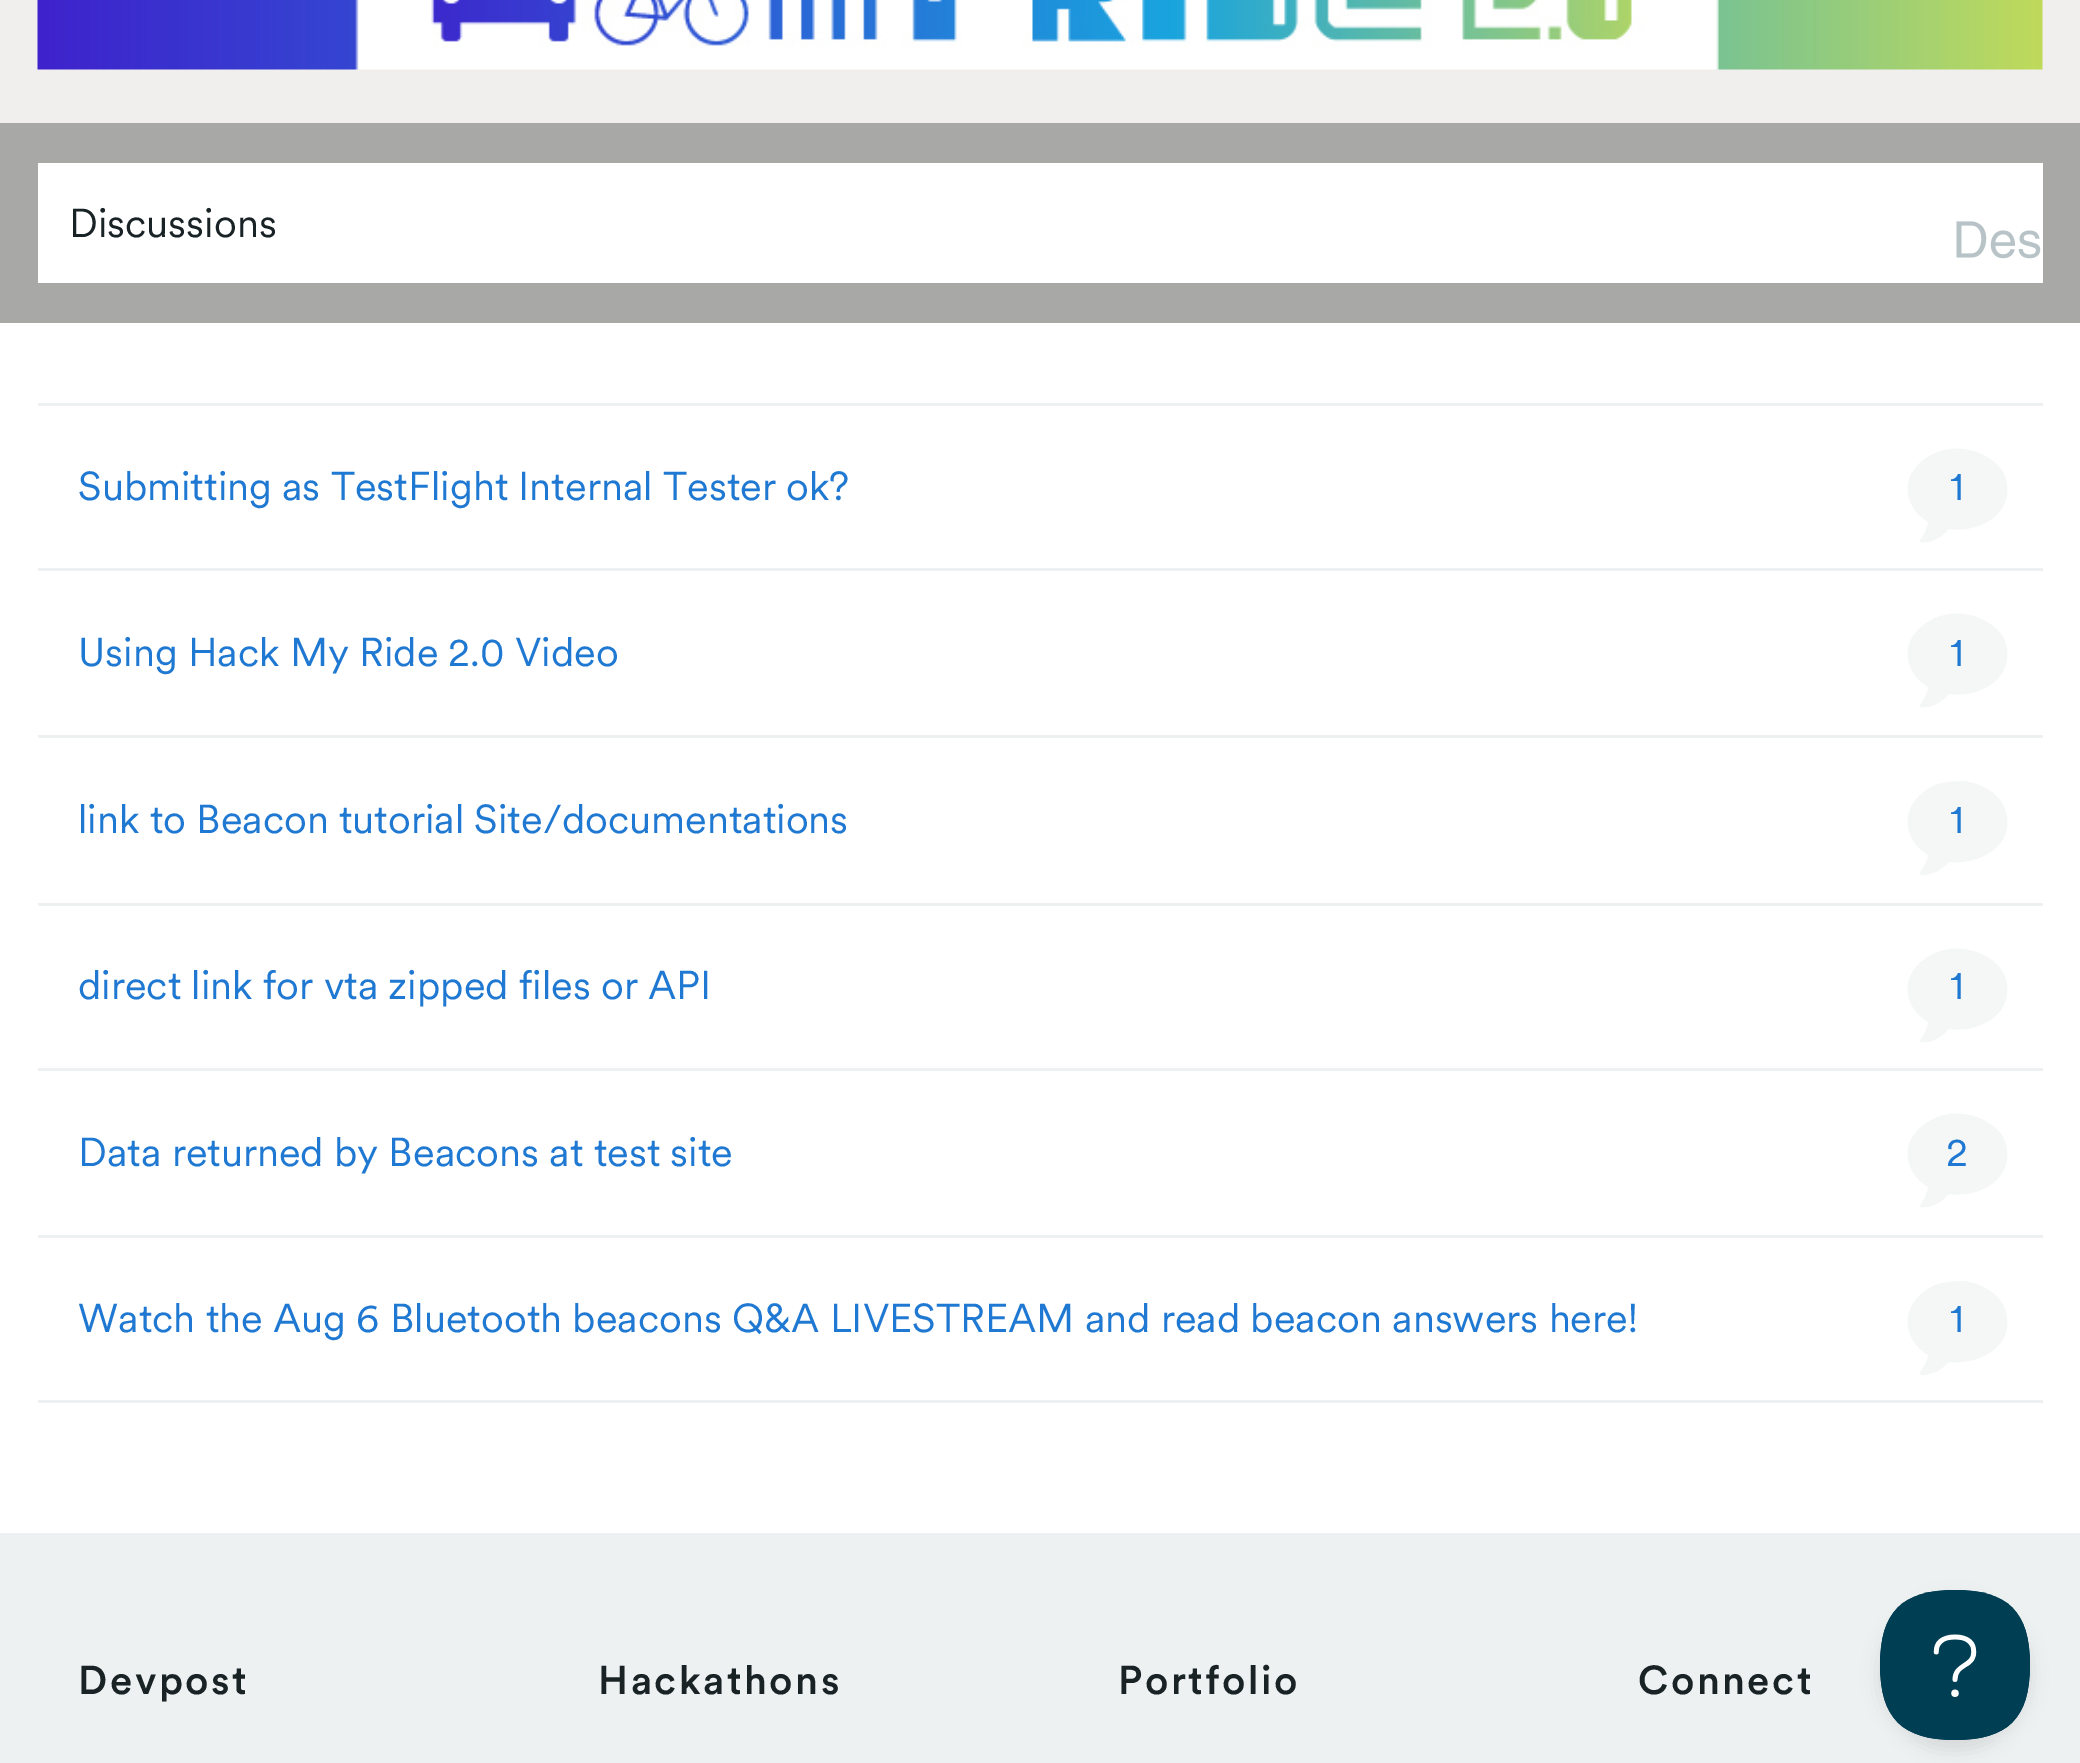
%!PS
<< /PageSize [2080 1763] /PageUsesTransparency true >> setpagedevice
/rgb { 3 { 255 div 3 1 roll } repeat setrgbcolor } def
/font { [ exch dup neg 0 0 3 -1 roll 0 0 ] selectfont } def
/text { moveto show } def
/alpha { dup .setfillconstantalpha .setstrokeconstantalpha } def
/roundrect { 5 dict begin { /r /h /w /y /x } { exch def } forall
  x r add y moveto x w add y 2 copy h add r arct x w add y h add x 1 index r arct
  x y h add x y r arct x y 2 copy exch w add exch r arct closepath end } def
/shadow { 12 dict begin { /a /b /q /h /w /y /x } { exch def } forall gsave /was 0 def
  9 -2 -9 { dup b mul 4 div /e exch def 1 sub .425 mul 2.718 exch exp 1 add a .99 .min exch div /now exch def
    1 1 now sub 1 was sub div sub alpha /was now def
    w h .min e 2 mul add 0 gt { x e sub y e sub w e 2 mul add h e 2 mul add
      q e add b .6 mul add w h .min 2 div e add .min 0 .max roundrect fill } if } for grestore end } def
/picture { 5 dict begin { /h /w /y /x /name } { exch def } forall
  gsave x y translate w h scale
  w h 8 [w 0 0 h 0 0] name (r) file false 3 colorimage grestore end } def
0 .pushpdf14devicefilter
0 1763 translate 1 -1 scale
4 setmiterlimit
255 255 255 rgb
0 0 2080 1763 rectfill
240 239 237 rgb
0 0 2080 123 rectfill
(img_01.rgb) 37 0 2006 70 picture
168 168 166 rgb
0 123 2080 200 rectfill
255 255 255 rgb
38 163 2005 120 rectfill
(img_02.rgb) 1956 221 85 38 picture
237 241 242 rgb
38 403 2005 3 rectfill
38 568 2005 3 rectfill
245 247 247 rgb
1993 461 moveto 8 6 13 14 14 24 rcurveto 4 32 -31 48 -58 44 rcurveto -4 4 -8 8 -13 10 rcurveto -3 2 -7 3 -10 3 rcurveto -11 2 -4 -4 -2 -8 rcurveto 2 -4 4 -8 4 -12 rcurveto -8 -5 -15 -12 -18 -21 rcurveto -9 -22 8 -42 28 -49 rcurveto 8 -3 16 -4 25 -3 rcurveto 11 1 21 5 30 12 rcurveto closepath fill
237 241 242 rgb
38 735 2005 3 rectfill
245 247 247 rgb
1993 626 moveto 8 6 13 14 14 24 rcurveto 4 32 -31 48 -58 44 rcurveto -4 4 -8 8 -13 10 rcurveto -3 2 -7 3 -10 3 rcurveto -11 2 -4 -4 -2 -8 rcurveto 2 -4 4 -8 4 -12 rcurveto -8 -5 -15 -12 -18 -21 rcurveto -9 -22 8 -42 28 -49 rcurveto 8 -3 16 -4 25 -3 rcurveto 11 1 21 5 30 12 rcurveto closepath fill
237 241 242 rgb
38 903 2005 3 rectfill
245 247 247 rgb
1993 793 moveto 8 6 13 15 14 25 rcurveto 4 31 -31 47 -58 44 rcurveto -4 4 -8 7 -13 10 rcurveto -3 1 -7 2 -10 3 rcurveto -11 1 -4 -5 -2 -9 rcurveto 2 -3 4 -7 4 -11 rcurveto -8 -5 -15 -12 -18 -21 rcurveto -9 -22 8 -43 28 -50 rcurveto 8 -2 16 -3 25 -3 rcurveto 11 1 21 5 30 12 rcurveto closepath fill
237 241 242 rgb
38 1068 2005 3 rectfill
245 247 247 rgb
1993 961 moveto 8 6 13 14 14 24 rcurveto 4 32 -31 48 -58 44 rcurveto -4 4 -8 8 -13 10 rcurveto -3 2 -7 3 -10 3 rcurveto -11 2 -4 -4 -2 -8 rcurveto 2 -4 4 -8 4 -12 rcurveto -8 -5 -15 -12 -18 -21 rcurveto -9 -22 8 -42 28 -49 rcurveto 8 -3 16 -4 25 -3 rcurveto 11 1 21 5 30 12 rcurveto closepath fill
237 241 242 rgb
38 1235 2005 3 rectfill
245 247 247 rgb
1993 1126 moveto 8 6 13 14 14 24 rcurveto 4 32 -31 48 -58 44 rcurveto -4 4 -8 8 -13 10 rcurveto -3 2 -7 3 -10 3 rcurveto -11 2 -4 -4 -2 -8 rcurveto 2 -4 4 -8 4 -12 rcurveto -8 -5 -15 -12 -18 -21 rcurveto -9 -22 8 -42 28 -49 rcurveto 8 -3 16 -4 25 -3 rcurveto 11 1 21 5 30 12 rcurveto closepath fill
237 241 242 rgb
38 1400 2005 3 rectfill
245 247 247 rgb
1993 1293 moveto 8 6 13 15 14 25 rcurveto 4 31 -31 47 -58 44 rcurveto -4 4 -8 7 -13 10 rcurveto -3 1 -7 2 -10 3 rcurveto -11 1 -4 -5 -2 -9 rcurveto 2 -3 4 -7 4 -11 rcurveto -8 -5 -15 -12 -18 -21 rcurveto -9 -22 8 -43 28 -50 rcurveto 8 -2 16 -3 25 -3 rcurveto 11 1 21 5 30 12 rcurveto closepath fill
237 241 242 rgb
0 1533 2080 230 rectfill
0 0 0 rgb
1880 1600 150 150 75 9 0.1 shadow
(img_03.rgb) 1880 1590 150 150 picture
/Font-Regular 40 font
25 35 37 rgb
(Discussions) 69 237 text
31 120 209 rgb
(Submitting as TestFlight Internal Tester ok?) 78 500 text
(1) 1950 500 text
(Using Hack My Ride 2.0 Video) 78 666 text
(1) 1950 666 text
(link to Beacon tutorial Site/documentations) 78 833 text
(1) 1950 833 text
(direct link for vta zipped files or API) 78 999 text
(1) 1950 999 text
(Data returned by Beacons at test site) 78 1166 text
(2) 1946 1166 text
(Watch the Aug 6 Bluetooth beacons Q&A LIVESTREAM and read beacon answers here!) 78 1332 text
(1) 1950 1332 text
/Font-Medium 40 font
25 35 37 rgb
78 1694 moveto 2.5 0 (Devpost) ashow
598 1694 moveto 2.5 0 (Hackathons) ashow
1118 1694 moveto 2.5 0 (Portfolio) ashow
1638 1694 moveto 2.5 0 (Connect) ashow
.poppdf14devicefilter showpage
